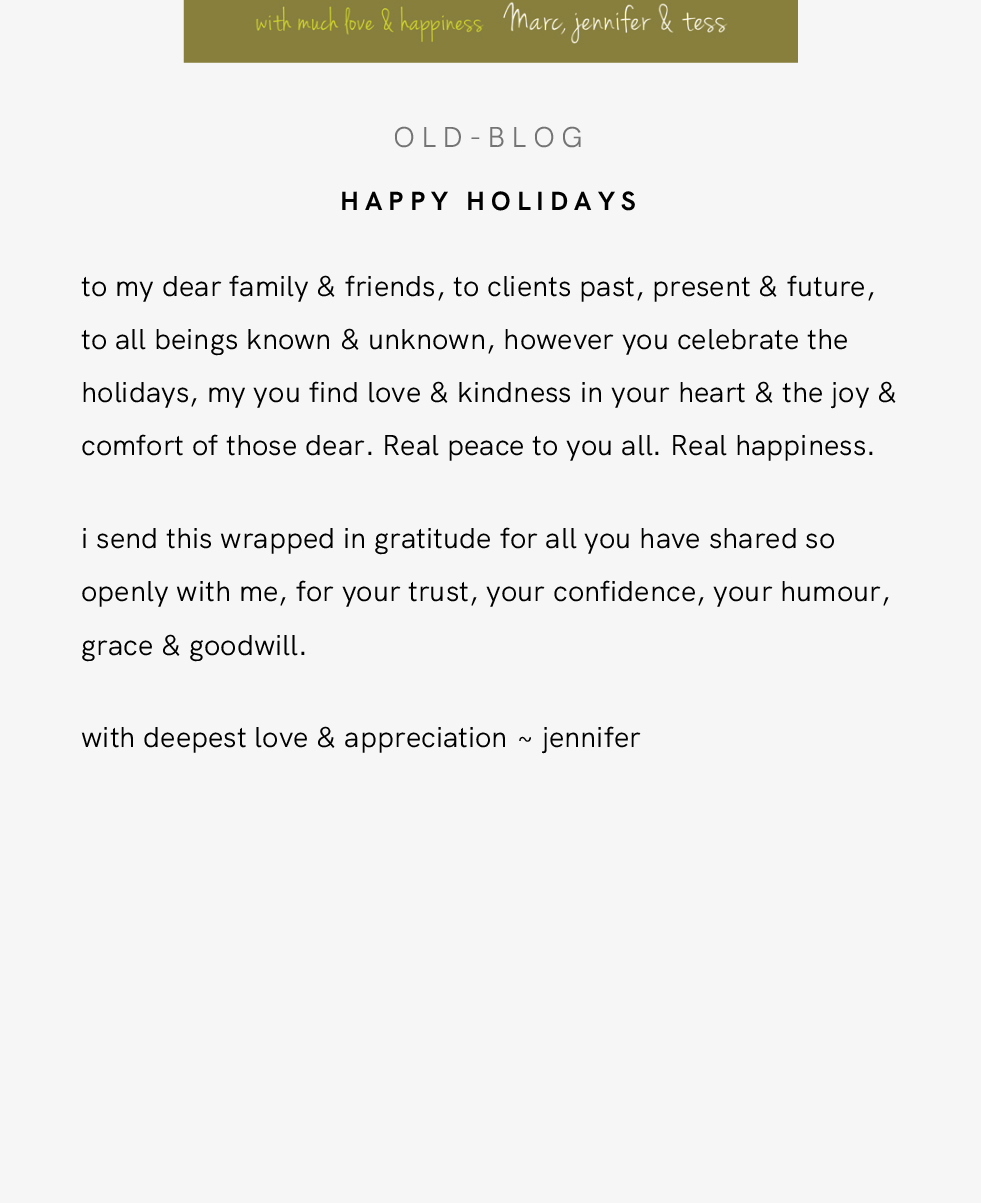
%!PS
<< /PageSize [981 1203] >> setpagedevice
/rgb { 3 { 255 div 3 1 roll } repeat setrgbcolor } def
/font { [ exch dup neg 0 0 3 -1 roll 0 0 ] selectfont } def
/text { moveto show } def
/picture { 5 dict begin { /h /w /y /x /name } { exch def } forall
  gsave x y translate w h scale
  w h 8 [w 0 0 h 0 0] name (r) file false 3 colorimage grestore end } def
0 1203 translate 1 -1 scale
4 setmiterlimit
246 246 246 rgb
0 0 981 1203 rectfill
(img_01.rgb) 183 0 615 63 picture
/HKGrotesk-Regular 28.8 font
116 116 116 rgb
393 147 moveto 5.75 0 (OLD-BLOG) ashow
/HKGrotesk-Bold 26.25 font
0 0 0 rgb
340 210 moveto 6 0 (HAPPY HOLIDAYS) ashow
/HKGrotesk-Regular 28.8 font
(to my dear family & friends, to clients past, present & future,) 81 296 text
(to all beings known & unknown, however you celebrate the) 81 349 text
(holidays, my you find love & kindness in your heart & the joy &) 81 402 text
(comfort of those dear. Real peace to you all. Real happiness.) 81 455 text
(i send this wrapped in gratitude for all you have shared so) 81 548 text
(openly with me, for your trust, your confidence, your humour,) 81 601 text
(grace & goodwill.) 81 655 text
(with deepest love & appreciation ~ jennifer) 81 747 text
showpage
